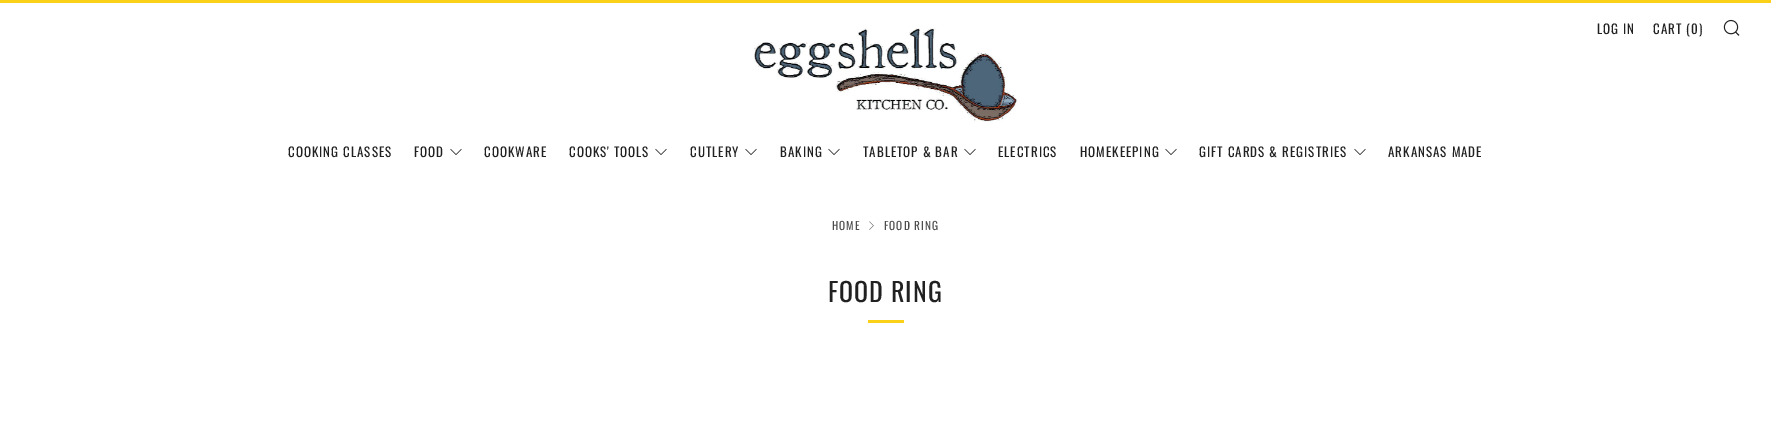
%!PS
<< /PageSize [1771 421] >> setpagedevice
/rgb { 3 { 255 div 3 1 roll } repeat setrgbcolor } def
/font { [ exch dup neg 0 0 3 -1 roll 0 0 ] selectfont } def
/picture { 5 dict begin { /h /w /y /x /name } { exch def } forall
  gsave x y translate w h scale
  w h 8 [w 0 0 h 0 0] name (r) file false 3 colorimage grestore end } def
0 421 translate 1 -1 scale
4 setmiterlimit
255 255 255 rgb
0 0 1771 421 rectfill
250 208 24 rgb
0 0 1771 3 rectfill
(img_01.rgb) 1723 19 17 17 picture
(img_02.rgb) 450 148 12 7 picture
(img_02.rgb) 655 148 12 7 picture
(img_02.rgb) 745 148 12 7 picture
(img_02.rgb) 828 148 12 7 picture
(img_02.rgb) 964 148 12 7 picture
(img_02.rgb) 1165 148 12 7 picture
(img_02.rgb) 1354 148 12 7 picture
(img_03.rgb) 754 28 264 94 picture
(img_04.rgb) 869 221 5 9 picture
868 320 36 3 rectfill
/Oswald-Regular 13 font
33 33 33 rgb
1597 34 moveto 1 0 (LOG IN) ashow
1653 34 moveto 1 0 (CART \(0\)) ashow
288 157 moveto 1 0 (COOKING CLASSES) ashow
414 157 moveto 1 0 (FOOD) ashow
484 157 moveto 1 0 (COOKWARE) ashow
569 157 moveto 1 0 (COOKS' TOOLS) ashow
690 157 moveto 1 0 (CUTLERY) ashow
780 157 moveto 1 0 (BAKING) ashow
863 157 moveto 1 0 (TABLETOP & BAR) ashow
998 157 moveto 1 0 (ELECTRICS) ashow
1080 157 moveto 1 0 (HOMEKEEPING) ashow
1199 157 moveto 1 0 (GIFT CARDS & REGISTRIES) ashow
1388 157 moveto 1 0 (ARKANSAS MADE) ashow
/Oswald-Regular 11.25 font
77 77 77 rgb
832 230 moveto 1 0 (HOME) ashow
884 230 moveto 1 0 (FOOD RING) ashow
/Oswald-Regular 26 font
33 33 33 rgb
828 302 moveto 1 0 (FOOD RING) ashow
showpage
